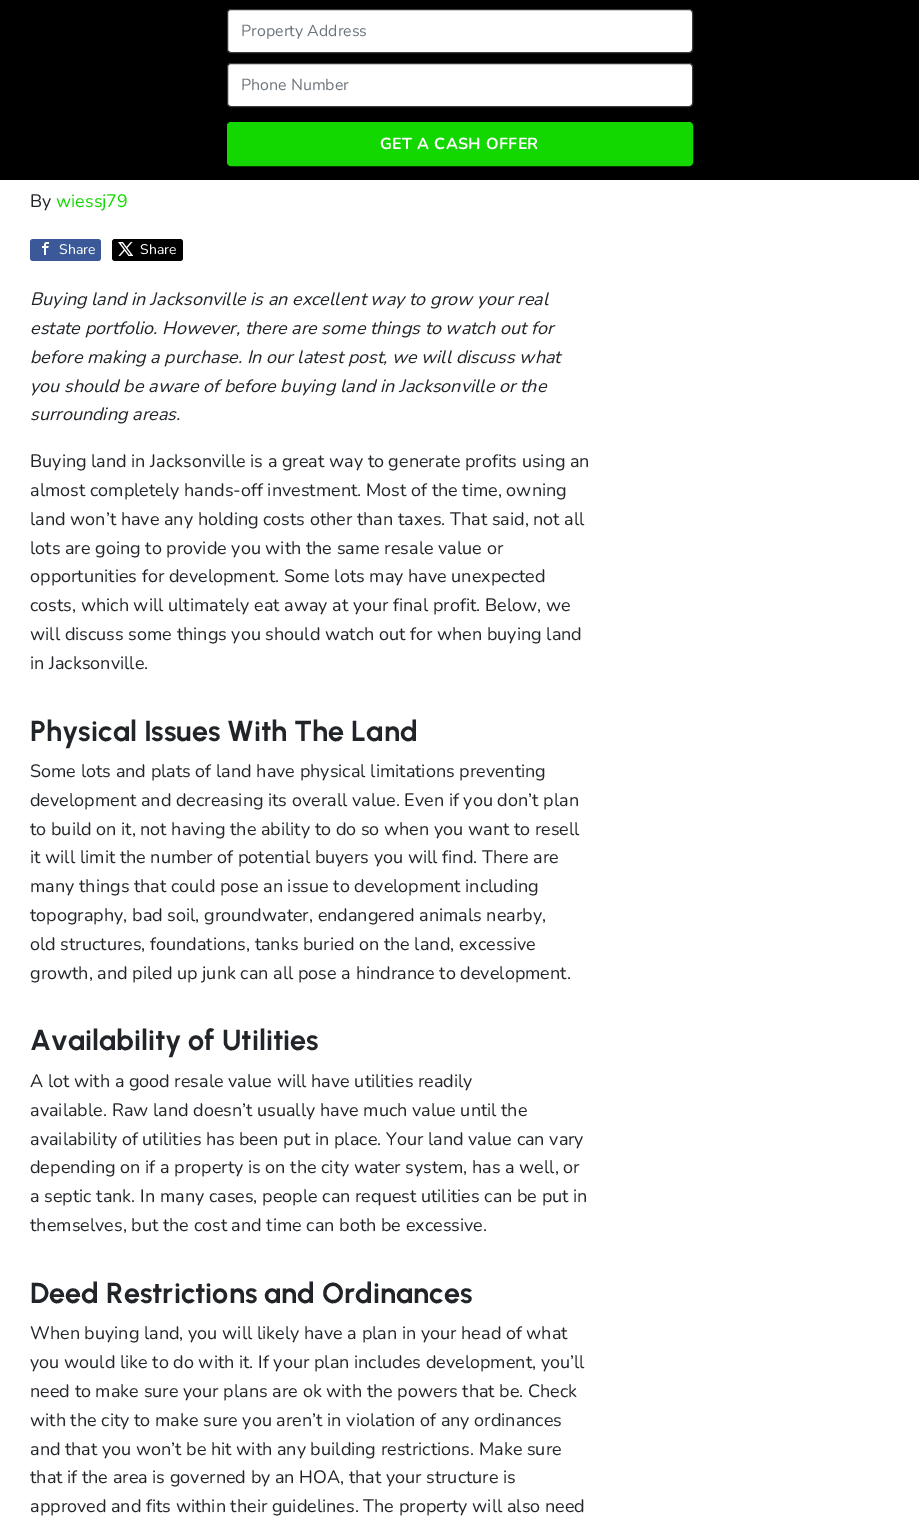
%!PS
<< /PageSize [919 1518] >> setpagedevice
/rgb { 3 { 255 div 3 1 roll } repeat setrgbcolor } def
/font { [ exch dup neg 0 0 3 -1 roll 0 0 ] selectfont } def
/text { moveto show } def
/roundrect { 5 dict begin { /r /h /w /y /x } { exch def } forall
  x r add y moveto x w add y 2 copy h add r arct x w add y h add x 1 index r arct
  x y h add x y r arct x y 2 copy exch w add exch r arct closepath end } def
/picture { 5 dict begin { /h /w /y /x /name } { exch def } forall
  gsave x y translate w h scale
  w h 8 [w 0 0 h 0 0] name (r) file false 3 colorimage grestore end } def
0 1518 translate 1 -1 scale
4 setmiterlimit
255 255 255 rgb
0 0 919 1518 rectfill
0 0 0 rgb
0 0 919 180 rectfill
255 255 255 rgb
227.5 9.5 465 43 3.5 roundrect gsave fill grestore
55 58 60 rgb
stroke
255 255 255 rgb
227.5 63.5 465 43 3.5 roundrect gsave fill grestore
55 58 60 rgb
stroke
18 216 0 rgb
227.5 122.5 465 43 3.5 roundrect gsave fill grestore
stroke
59 89 152 rgb
30 239 71 22 3 roundrect fill
(img_01.rgb) 42 242 7 13 picture
0 0 0 rgb
112 239 71 22 3 roundrect fill
(img_02.rgb) 118 242 16 14 picture
/Nunito-Regular 16 font
108 117 125 rgb
(Property Address) 241 36 text
(Phone Number) 241 90 text
/Nunito-Bold 16 font
255 255 255 rgb
380 149 moveto 0.4 0 (GET A CASH OFFER) ashow
/Nunito-Regular 18 font
33 37 41 rgb
(By) 30 207 text
18 216 0 rgb
(wiessj79) 56 207 text
/Nunito-Regular 14 font
255 255 255 rgb
(Share) 59 254 text
(Share) 140 254 text
/Nunito-Italic 18 font
33 37 41 rgb
(Buying land in Jacksonville is an excellent way to grow your real) 30 305 text
(estate portfolio. However, there are some things to watch out for) 30 334 text
(before making a purchase. In our latest post, we will discuss what) 30 363 text
(you should be aware of before buying land in Jacksonville or the) 30 392 text
(surrounding areas.) 30 420 text
/Nunito-Regular 18 font
(Buying land in Jacksonville is a great way to generate profits using an) 30 467 text
(almost completely hands-off investment. Most of the time, owning) 30 496 text
(land won’t have any holding costs other than taxes. That said, not all) 30 525 text
(lots are going to provide you with the same resale value or) 30 554 text
(opportunities for development. Some lots may have unexpected) 30 582 text
(costs, which will ultimately eat away at your final profit. Below, we) 30 611 text
(will discuss some things you should watch out for when buying land) 30 640 text
(in Jacksonville.) 30 669 text
/Urbanist-Bold 28.75 font
(Physical Issues With The Land) 30 741 text
/Nunito-Regular 18 font
(Some lots and plats of land have physical limitations preventing) 30 777 text
(development and decreasing its overall value. Even if you don’t plan) 30 806 text
(to build on it, not having the ability to do so when you want to resell) 30 835 text
(it will limit the number of potential buyers you will find. There are) 30 863 text
(many things that could pose an issue to development including) 30 892 text
(topography, bad soil, groundwater, endangered animals nearby,) 30 921 text
(old structures, foundations, tanks buried on the land, excessive) 30 950 text
(growth, and piled up junk can all pose a hindrance to development.) 30 979 text
/Urbanist-Bold 28.75 font
(Availability of Utilities) 30 1050 text
/Nunito-Regular 18 font
(A lot with a good resale value will have utilities readily) 30 1087 text
(available. Raw land doesn’t usually have much value until the) 30 1116 text
(availability of utilities has been put in place. Your land value can vary) 30 1145 text
(depending on if a property is on the city water system, has a well, or) 30 1173 text
(a septic tank. In many cases, people can request utilities can be put in) 30 1202 text
(themselves, but the cost and time can both be excessive.) 30 1231 text
/Urbanist-Bold 28.75 font
(Deed Restrictions and Ordinances) 30 1303 text
/Nunito-Regular 18 font
(When buying land, you will likely have a plan in your head of what) 30 1339 text
(you would like to do with it. If your plan includes development, you’ll) 30 1368 text
(need to make sure your plans are ok with the powers that be. Check) 30 1397 text
(with the city to make sure you aren’t in violation of any ordinances) 30 1426 text
(and that you won’t be hit with any building restrictions. Make sure) 30 1455 text
(that if the area is governed by an HOA, that your structure is) 30 1483 text
(approved and fits within their guidelines. The property will also need) 30 1512 text
showpage
